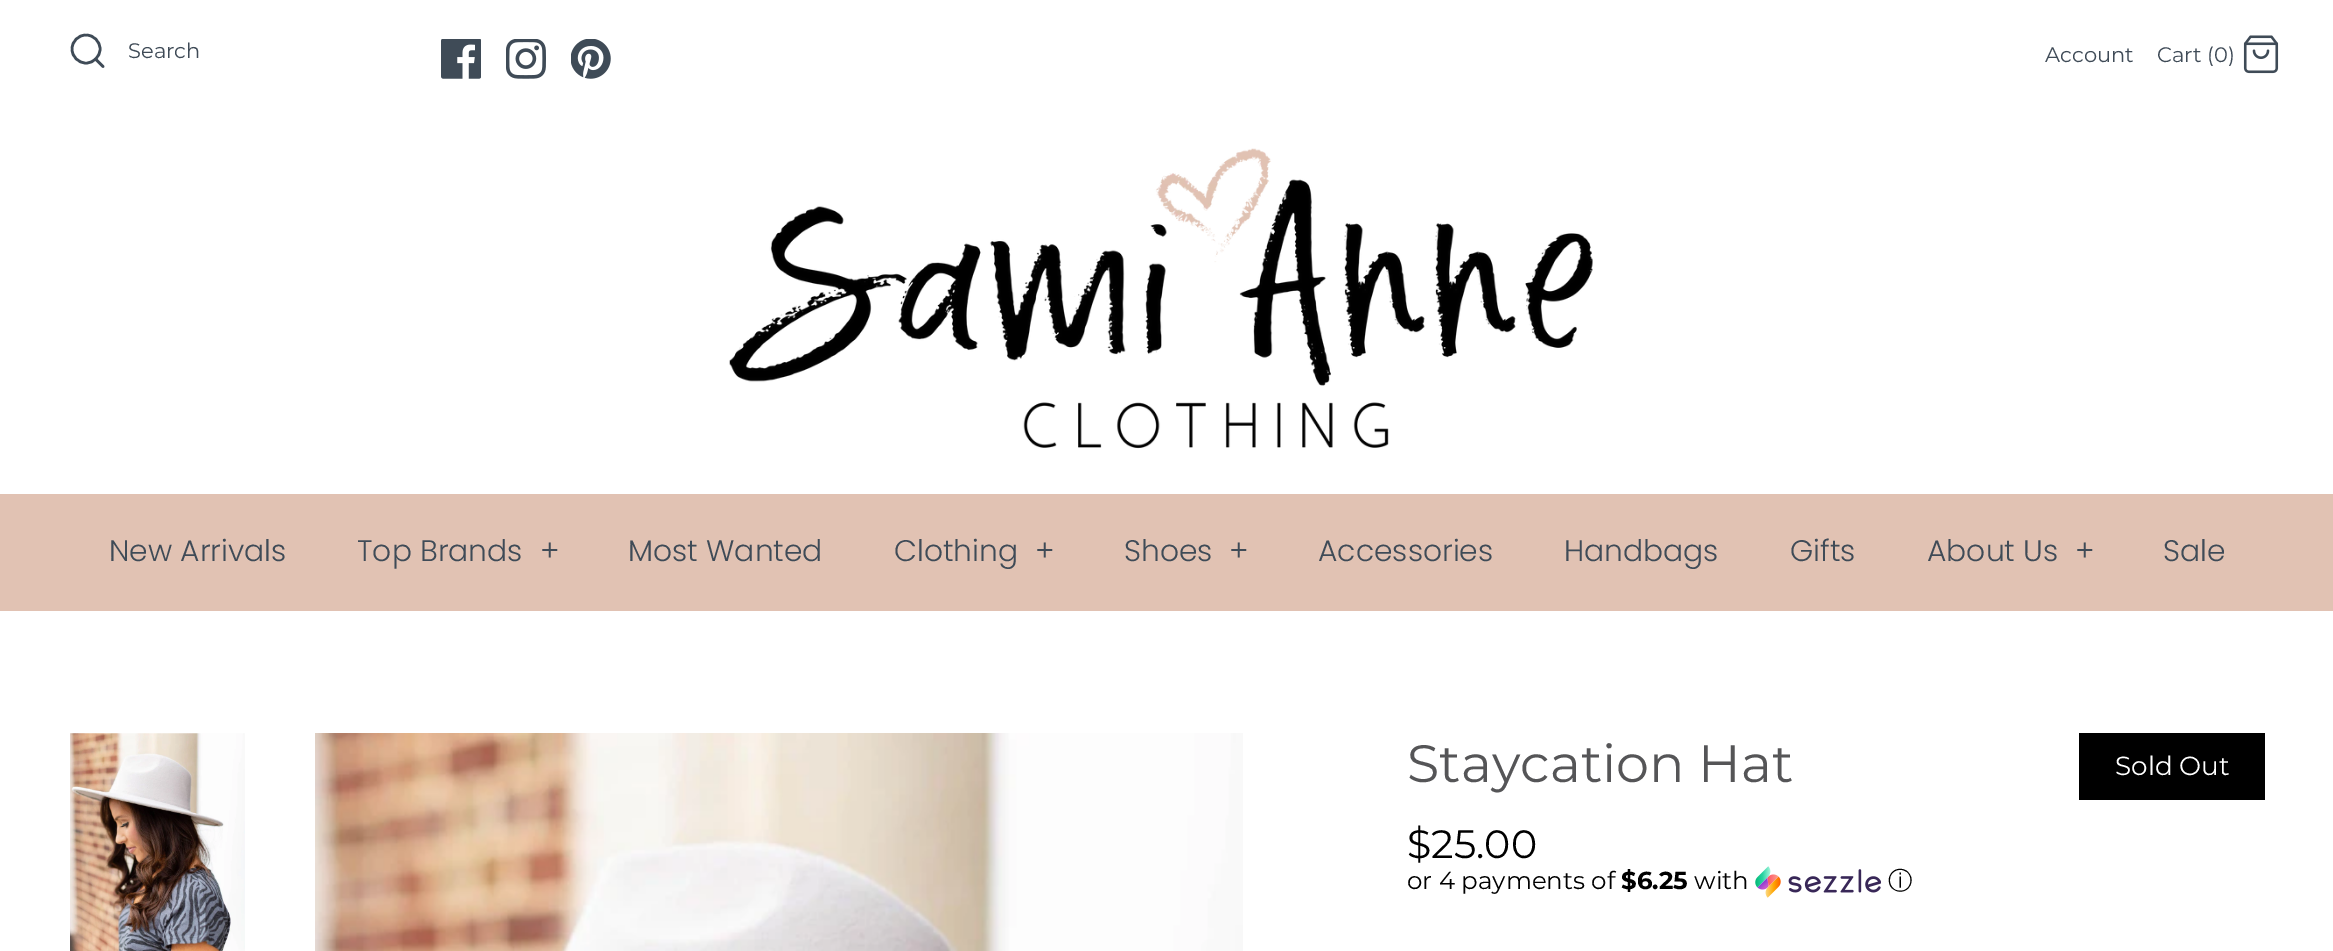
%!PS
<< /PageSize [2333 951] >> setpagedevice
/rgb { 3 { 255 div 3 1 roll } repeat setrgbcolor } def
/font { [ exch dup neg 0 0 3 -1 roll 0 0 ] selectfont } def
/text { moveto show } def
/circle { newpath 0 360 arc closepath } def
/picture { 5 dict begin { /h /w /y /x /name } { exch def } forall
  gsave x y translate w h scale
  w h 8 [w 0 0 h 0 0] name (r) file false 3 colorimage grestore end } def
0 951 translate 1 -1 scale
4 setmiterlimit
255 255 255 rgb
0 0 2333 951 rectfill
63 75 87 rgb
2.6 setlinewidth
86 49 14 circle stroke
1 setlinecap
1 setlinejoin
103 66.5 moveto -7.5 -7.5 rlineto stroke
(img_01.rgb) 441 39 40 40 picture
(img_02.rgb) 506 39 40 40 picture
(img_03.rgb) 571 39 40 40 picture
(img_04.rgb) 2243 35 36 39 picture
(img_05.rgb) 729 148 864 301 picture
225 194 179 rgb
0 494 2333 117 rectfill
(img_06.rgb) 70 733 175 218 picture
(img_07.rgb) 315 733 928 218 picture
0 0 0 rgb
2079 733 186 67 rectfill
(img_08.rgb) 1755 866 126 32 picture
/Montserrat-Regular 21 font
63 75 87 rgb
(Search) 128 58 text
(Account) 2045 62 text
(Cart \(0\)) 2157 62 text
/Poppins-Light 29.75 font
(New Arrivals) 109 561 text
(Top Brands) 357 561 text
(+) 540 561 text
(Most Wanted) 628 561 text
(Clothing) 894 561 text
(+) 1035 561 text
(Shoes) 1124 561 text
(+) 1229 561 text
(Accessories) 1318 561 text
(Handbags) 1564 561 text
(Gifts) 1790 561 text
(About Us) 1927 561 text
(+) 2075 561 text
(Sale) 2163 561 text
/Montserrat-Regular 52.5 font
85 85 87 rgb
(Staycation Hat) 1407 782 text
/Montserrat-Regular 26.25 font
255 255 255 rgb
(Sold Out) 2115 775 text
/Montserrat-Regular 39.5 font
0 0 0 rgb
($25.00) 1407 858 text
/Montserrat-Regular 24.5 font
(or 4 payments of) 1407 889 text
/Montserrat-Bold 24.5 font
($6.25) 1621 889 text
/Montserrat-Regular 24.5 font
(with) 1694 889 text
/WenQuanYiZenHei-Medium 24.5 font
(ⓘ) 1888 889 text
showpage
